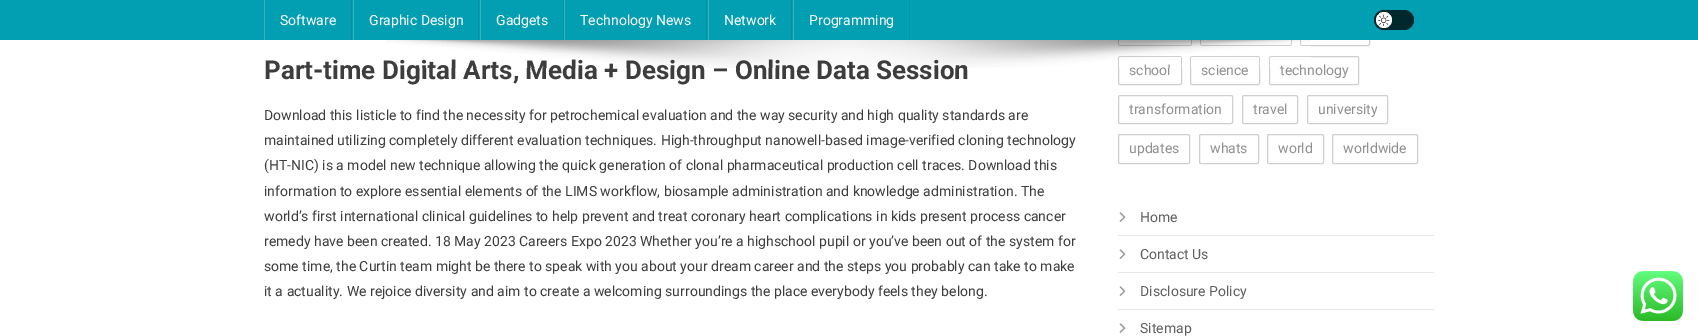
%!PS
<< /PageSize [1698 336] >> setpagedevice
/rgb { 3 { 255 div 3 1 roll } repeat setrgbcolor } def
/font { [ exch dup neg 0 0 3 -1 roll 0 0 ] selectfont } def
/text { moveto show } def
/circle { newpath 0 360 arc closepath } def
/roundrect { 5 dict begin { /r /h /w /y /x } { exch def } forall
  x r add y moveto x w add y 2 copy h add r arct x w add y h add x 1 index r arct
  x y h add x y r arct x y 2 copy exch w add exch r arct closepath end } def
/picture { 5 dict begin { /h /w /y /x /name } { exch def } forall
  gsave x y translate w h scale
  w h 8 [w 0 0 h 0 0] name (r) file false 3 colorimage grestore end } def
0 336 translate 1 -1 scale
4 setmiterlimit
255 255 255 rgb
0 0 1698 336 rectfill
207 207 207 rgb
1118.5 17.5 73 28 1.5 roundrect stroke
1200.5 17.5 91 28 1.5 roundrect stroke
1300.5 17.5 69 28 1.5 roundrect stroke
2 159 178 rgb
0 0 1698 40 rectfill
2 146 164 rgb
351 0 1 40 rectfill
53 178 193 rgb
264 0 1 40 rectfill
2 146 164 rgb
478 0 1 40 rectfill
53 178 193 rgb
353 0 1 40 rectfill
2 146 164 rgb
563 0 1 40 rectfill
53 178 193 rgb
480 0 1 40 rectfill
2 146 164 rgb
706 0 1 40 rectfill
53 178 193 rgb
564 0 1 40 rectfill
2 146 164 rgb
791 0 1 40 rectfill
53 178 193 rgb
708 0 1 40 rectfill
2 146 164 rgb
909 0 1 40 rectfill
53 178 193 rgb
793 0 1 40 rectfill
1 40 45 rgb
1374 10 40 20 10 roundrect fill
255 255 255 rgb
1384 20 8 circle fill
(img_01.rgb) 1378 14 12 12 picture
207 207 207 rgb
1118.5 56.5 63 28 1.5 roundrect stroke
1190.5 56.5 69 28 1.5 roundrect stroke
1269.5 56.5 89 28 1.5 roundrect stroke
1118.5 95.5 114 28 1.5 roundrect stroke
1242.5 95.5 55 28 1.5 roundrect stroke
1307.5 95.5 80 28 1.5 roundrect stroke
1118.5 134.5 71 29 1.5 roundrect stroke
1199.5 134.5 59 29 1.5 roundrect stroke
1267.5 134.5 56 29 1.5 roundrect stroke
1332.5 134.5 85 29 1.5 roundrect stroke
230 230 230 rgb
1118 235 316 1 rectfill
(img_03.rgb) 1119 212 7 10 picture
1118 272 316 1 rectfill
(img_03.rgb) 1119 249 7 10 picture
1118 309 316 1 rectfill
(img_03.rgb) 1119 286 7 10 picture
(img_03.rgb) 1119 323 7 10 picture
(img_04.rgb) 1633 271 50 50 picture
/Roboto-Regular 14 font
255 255 255 rgb
(Software) 280 25 text
(Graphic Design) 369 25 text
(Gadgets) 496 25 text
(Technology News) 580 25 text
(Network) 724 25 text
(Programming) 809 25 text
/Roboto-Bold 26 font
61 61 61 rgb
(Part-time Digital Arts, Media + Design – Online Data Session) 264 79 text
/Roboto-Regular 14 font
(Download this listicle to find the necessity for petrochemical evaluation and the way security and high quality standards are) 264 120 text
(maintained utilizing completely different evaluation techniques. High-throughput nanowell-based image-verified cloning technology) 264 145 text
(\(HT-NIC\) is a model new technique allowing the quick generation of clonal pharmaceutical production cell traces. Download this) 264 170 text
(information to explore essential elements of the LIMS workflow, biosample administration and knowledge administration. The) 264 196 text
(world’s first international clinical guidelines to help prevent and treat coronary heart complications in kids present process cancer) 264 221 text
(remedy have been created. 18 May 2023 Careers Expo 2023 Whether you’re a highschool pupil or you’ve been out of the system for) 264 246 text
(some time, the Curtin team might be there to speak with you about your dream career and the steps you probably can take to make) 264 271 text
(it a actuality. We rejoice diversity and aim to create a welcoming surroundings the place everybody feels they belong.) 264 296 text
144 144 144 rgb
(school) 1129 75 text
(science) 1201 75 text
(technology) 1280 75 text
(img_02.rgb) 386 40 925 28 picture
(transformation) 1129 114 text
(travel) 1253 114 text
(university) 1318 114 text
(updates) 1129 153 text
(whats) 1210 153 text
(world) 1278 153 text
(worldwide) 1343 153 text
95 95 95 rgb
(Home) 1140 222 text
(Contact Us) 1140 259 text
(Disclosure Policy) 1140 296 text
(Sitemap) 1140 333 text
showpage
